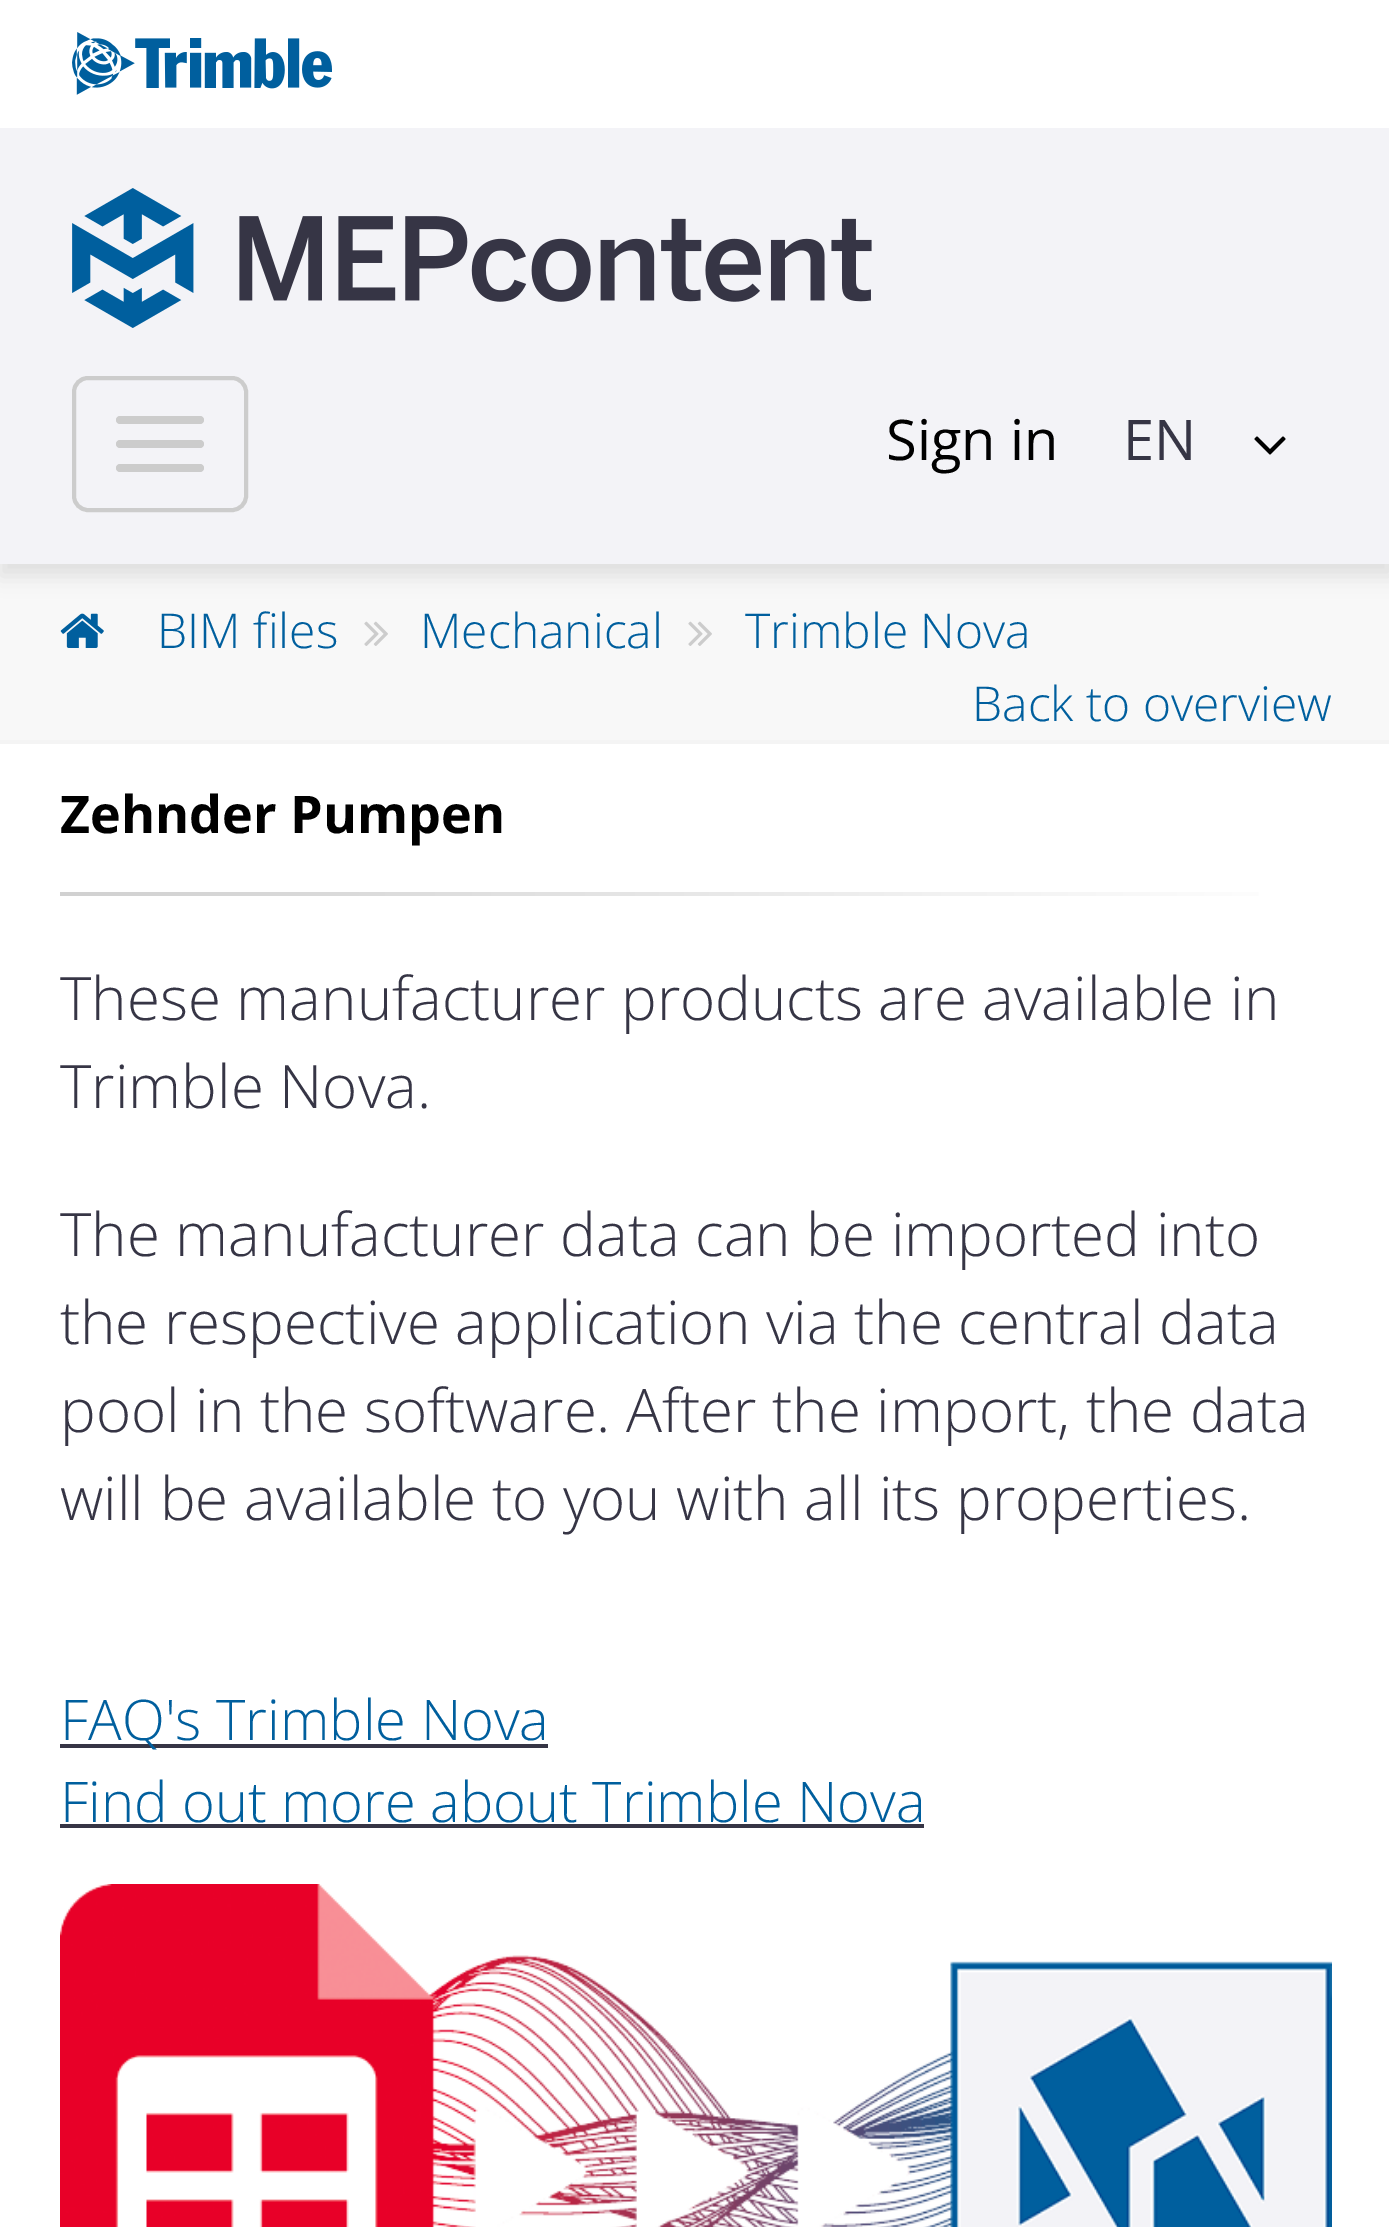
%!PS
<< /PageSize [1389 2227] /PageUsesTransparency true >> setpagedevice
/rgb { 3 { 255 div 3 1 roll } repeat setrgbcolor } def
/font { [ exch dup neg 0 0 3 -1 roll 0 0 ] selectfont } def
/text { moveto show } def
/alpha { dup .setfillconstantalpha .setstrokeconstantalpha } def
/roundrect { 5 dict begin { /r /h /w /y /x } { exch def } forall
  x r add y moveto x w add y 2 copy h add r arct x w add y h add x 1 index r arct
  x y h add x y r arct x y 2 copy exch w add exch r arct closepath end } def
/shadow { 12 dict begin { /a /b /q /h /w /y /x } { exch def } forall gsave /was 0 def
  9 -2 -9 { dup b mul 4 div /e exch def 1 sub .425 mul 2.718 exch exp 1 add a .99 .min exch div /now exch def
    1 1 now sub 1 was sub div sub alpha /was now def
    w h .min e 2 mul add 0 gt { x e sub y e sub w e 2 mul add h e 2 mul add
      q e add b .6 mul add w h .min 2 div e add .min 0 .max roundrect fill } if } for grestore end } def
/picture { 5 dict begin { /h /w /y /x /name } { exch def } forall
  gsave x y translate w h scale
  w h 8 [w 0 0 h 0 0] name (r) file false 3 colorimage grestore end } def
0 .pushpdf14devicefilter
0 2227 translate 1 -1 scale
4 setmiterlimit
255 255 255 rgb
0 0 1389 2227 rectfill
248 248 248 rgb
0 564 1389 176 rectfill
0 0 0 rgb
0 12 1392 564 0 10 0.1 shadow
243 243 247 rgb
0 128 1389 436 rectfill
255 255 255 rgb
0 0 1389 128 rectfill
(img_01.rgb) 72 32 260 63 picture
(img_02.rgb) 72 188 800 140 picture
204 204 204 rgb
4 setlinewidth
74 378 172 132 14 roundrect stroke
116 416 88 8 4 roundrect fill
116 440 88 8 4 roundrect fill
116 464 88 8 4 roundrect fill
(img_03.rgb) 1254 436 32 19 picture
244 244 244 rgb
0 740 1389 4 rectfill
(img_04.rgb) 60 613 44 35 picture
(img_05.rgb) 364 621 24 25 picture
(img_05.rgb) 688 621 24 25 picture
gsave 60 892 moveto 1199 0 rlineto 0 4 rlineto -1199 0 rlineto closepath clip newpath
<< /ShadingType 2 /ColorSpace /DeviceRGB /Coords [60 894 1332 894] /Extend [true true] /Function << /FunctionType 3 /Domain [0 1] /Functions [<< /FunctionType 2 /Domain [0 1] /C0 [0.82 0.82 0.82] /C1 [0.878 0.878 0.878] /N 1 >> << /FunctionType 2 /Domain [0 1] /C0 [0.878 0.878 0.878] /C1 [0.949 0.949 0.949] /N 1 >> << /FunctionType 2 /Domain [0 1] /C0 [0.949 0.949 0.949] /C1 [1 1 1] /N 1 >>] /Bounds [0.35 0.7] /Encode [0 1 0 1 0 1] >> >> shfill grestore
54 53 69 rgb
60 1744 488 4 rectfill
60 1824 864 4 rectfill
(img_06.rgb) 60 1884 1272 343 picture
/OpenSans-Regular 56 font
0 0 0 rgb
(Sign in) 886 460 text
54 53 69 rgb
(EN) 1123 460 text
/OpenSans-Light 48 font
0 95 158 rgb
(BIM files) 157 648 text
(Mechanical) 420 648 text
(Trimble Nova) 745 648 text
(Back to overview) 972 721 text
/OpenSans-Bold 52 font
0 0 0 rgb
(Zehnder Pumpen) 60 833 text
/OpenSans-Light 60 font
54 53 69 rgb
(These manufacturer products are available in) 60 1020 text
(Trimble Nova.) 60 1108 text
(The manufacturer data can be imported into) 60 1256 text
(the respective application via the central data) 60 1344 text
(pool in the software. After the import, the data) 60 1432 text
(will be available to you with all its properties.) 60 1520 text
/OpenSans-Light 56 font
0 95 158 rgb
(FAQ's Trimble Nova) 60 1740 text
(Find out more about Trimble Nova) 60 1822 text
.poppdf14devicefilter showpage
